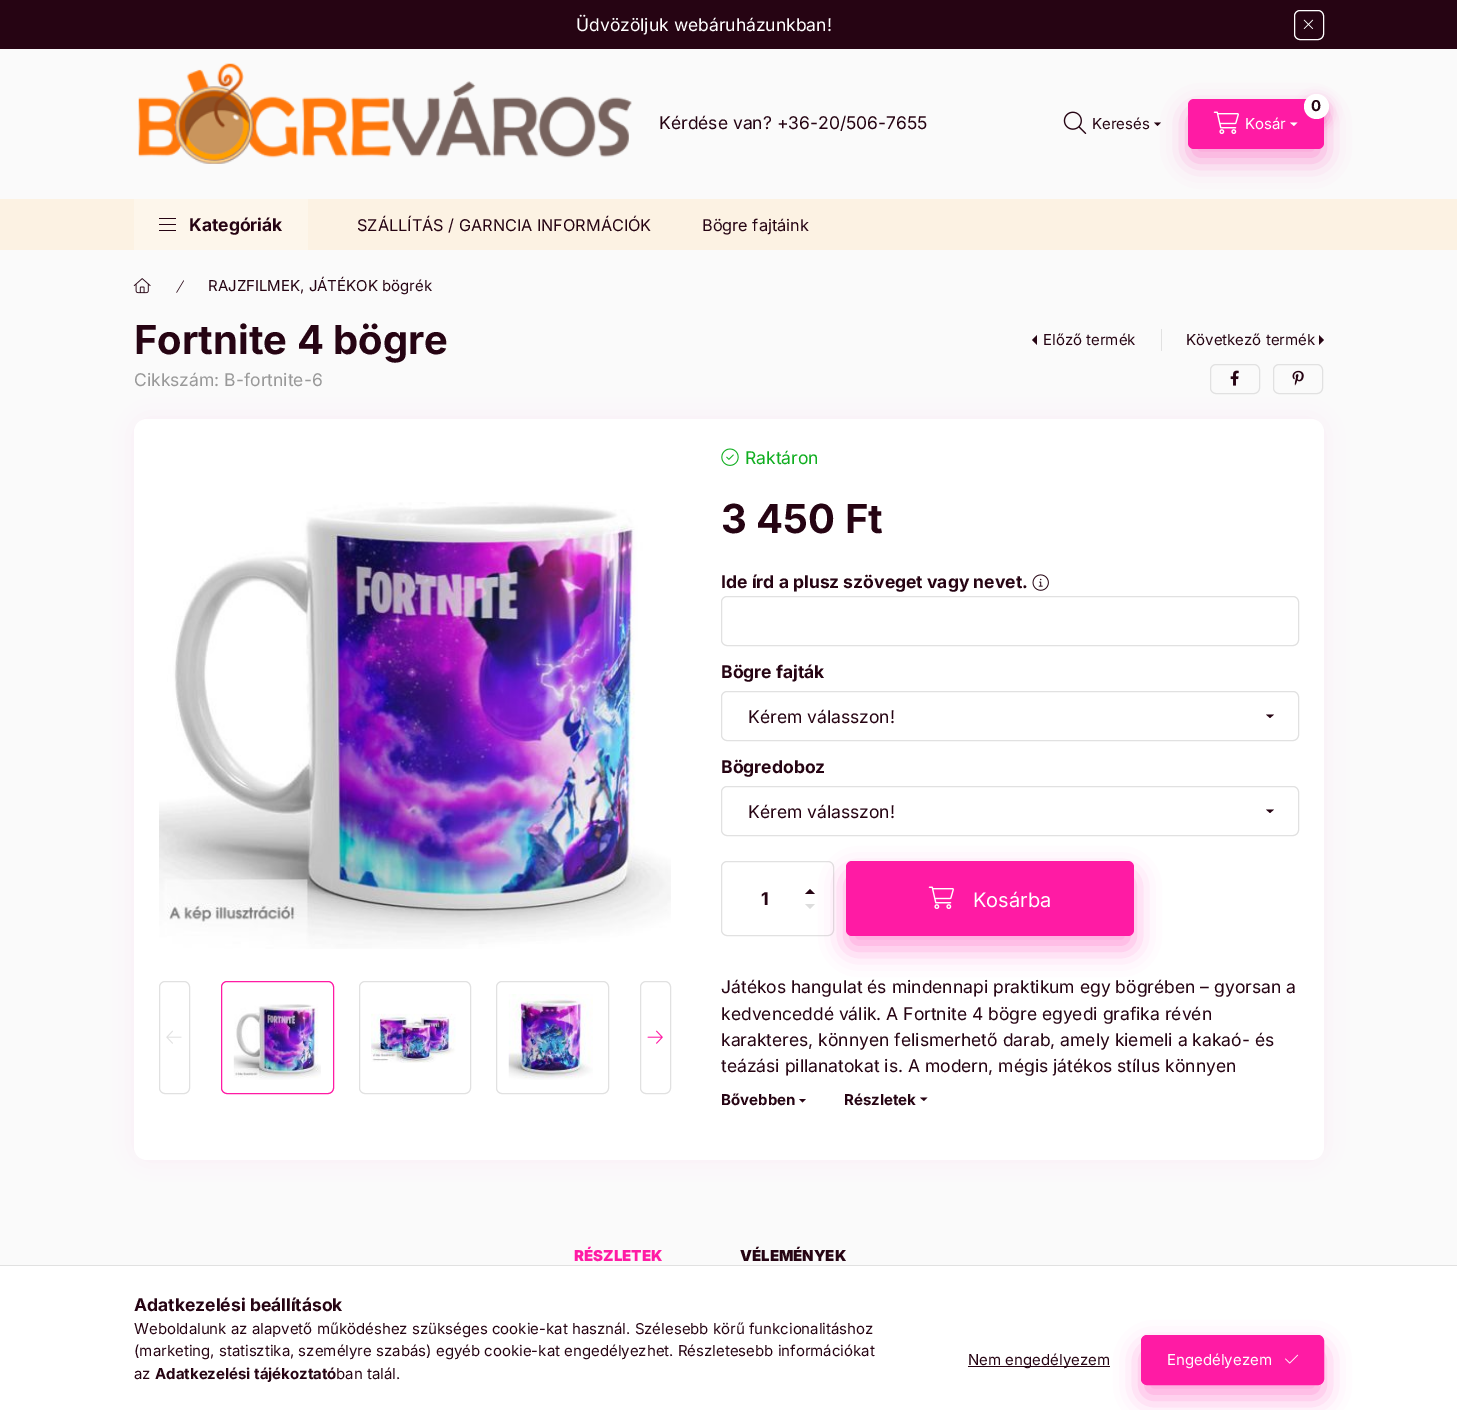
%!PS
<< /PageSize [1457 1410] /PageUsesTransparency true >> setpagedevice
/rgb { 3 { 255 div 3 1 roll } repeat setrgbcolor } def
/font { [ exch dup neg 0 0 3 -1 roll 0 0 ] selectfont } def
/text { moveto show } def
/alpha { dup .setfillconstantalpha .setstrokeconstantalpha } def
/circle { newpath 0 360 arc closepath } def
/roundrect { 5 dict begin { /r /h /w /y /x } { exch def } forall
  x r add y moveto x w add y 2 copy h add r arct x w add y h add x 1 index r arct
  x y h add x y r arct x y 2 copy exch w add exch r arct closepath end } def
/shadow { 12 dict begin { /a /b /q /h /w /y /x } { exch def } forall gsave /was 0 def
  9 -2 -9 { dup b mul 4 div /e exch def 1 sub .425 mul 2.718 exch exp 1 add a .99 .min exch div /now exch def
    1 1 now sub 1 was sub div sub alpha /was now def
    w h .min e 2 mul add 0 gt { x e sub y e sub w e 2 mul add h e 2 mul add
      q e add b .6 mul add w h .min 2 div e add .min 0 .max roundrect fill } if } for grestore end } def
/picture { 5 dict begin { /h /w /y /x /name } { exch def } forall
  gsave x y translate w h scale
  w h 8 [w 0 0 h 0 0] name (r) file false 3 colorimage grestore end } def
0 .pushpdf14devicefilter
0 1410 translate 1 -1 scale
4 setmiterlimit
250 250 250 rgb
0 0 1457 1410 rectfill
38 4 19 rgb
0 0 1457 49 rectfill
255 255 255 rgb
1294.5 10.5 29 29 5.5 roundrect stroke
(img_01.rgb) 1303 19 11 10 picture
(img_02.rgb) 138 63 494 101 picture
(img_03.rgb) 1063 111 24 23 picture
252 242 227 rgb
0 199 1457 51 rectfill
255 27 164 rgb
1188 111 136 50 6 12.5 0.4 shadow
38 4 19 rgb
1154 122.5 moveto 7 0 rlineto -3.5 3.5 rlineto closepath fill
255 27 164 rgb
1188 99 136 50 6 roundrect fill
1304 100 25 25 12.5 6 0.4 shadow
255 255 255 rgb
1316.5 106.5 12.5 circle fill
(img_04.rgb) 1213 111 26 23 picture
1290 122.5 moveto 7.5 0 rlineto -3.5 3.5 rlineto closepath fill
253 246 235 rgb
134 199 174 51 rectfill
38 4 19 rgb
159 218 17 1 rectfill
159 224 17 1 rectfill
159 230 17 1 rectfill
(img_05.rgb) 133 278 18 16 picture
(img_06.rgb) 176 280 8 13 picture
1037 345 moveto 0 -10 rlineto -5 5 rlineto closepath fill
225 225 225 rgb
1161 329 1 22 rectfill
38 4 19 rgb
1319 345 moveto 0 -10 rlineto 5 5 rlineto closepath fill
225 225 225 rgb
1210.5 364.5 49 29 5.5 roundrect stroke
(img_07.rgb) 1230 370 9 16 picture
1273.5 364.5 49 29 5.5 roundrect stroke
(img_08.rgb) 1292 370 12 16 picture
255 27 164 rgb
134 419 1190 741 13 12.5 0.05 shadow
255 255 255 rgb
134 419 1190 741 13 roundrect fill
(img_09.rgb) 159 502 512 447 picture
225 225 225 rgb
159.5 981.5 30 112 5.5 roundrect stroke
(img_10.rgb) 166 1030 16 14 picture
255 27 164 rgb
221.5 981.5 112 112 5.5 roundrect stroke
(img_11.rgb) 233 1004 88 76 picture
225 225 225 rgb
359.5 981.5 111 112 5.5 roundrect stroke
(img_12.rgb) 371 1013 85 50 picture
496.5 981.5 112 112 5.5 roundrect stroke
(img_13.rgb) 508 994 85 86 picture
640.5 981.5 30 112 5.5 roundrect stroke
(img_14.rgb) 647 1030 16 14 picture
(img_15.rgb) 721 448 18 18 picture
(img_16.rgb) 1032 574 17 17 picture
721.5 596.5 577 49 5.5 roundrect stroke
721.5 691.5 577 49 5.5 roundrect stroke
38 4 19 rgb
1266 714.5 moveto 8 0 rlineto -4 3.5 rlineto closepath fill
225 225 225 rgb
721.5 786.5 577 49 5.5 roundrect stroke
38 4 19 rgb
1266 809.5 moveto 8 0 rlineto -4 3.5 rlineto closepath fill
225 225 225 rgb
721.5 861.5 112 74 5.5 roundrect stroke
38 4 19 rgb
815 894 moveto -10 0 rlineto 5 -5 rlineto closepath fill
221 221 221 rgb
805 904 moveto 10 0 rlineto -5 5 rlineto closepath fill
255 27 164 rgb
846 874 288 75 6 12.5 0.4 shadow
846 861 288 75 6 roundrect fill
(img_04.rgb) 928 886 26 23 picture
38 4 19 rgb
799 1099 moveto 7 0 rlineto -3.5 3.5 rlineto closepath fill
920 1097.5 moveto 7.5 0 rlineto -3.5 3.5 rlineto closepath fill
255 255 255 rgb
0 1266 1457 144 rectfill
225 225 225 rgb
0 1265 1457 1 rectfill
38 4 19 rgb
968 1366 142 1 rectfill
255 27 164 rgb
1141 1348 183 50 6 12.5 0.4 shadow
1141.5 1335.5 182 49 5.5 roundrect gsave fill grestore
stroke
(img_17.rgb) 1285 1354 14 10 picture
/Inter-Regular 17.5 font
255 255 255 rgb
(Üdvözöljuk webáruházunkban!) 576 31 text
38 4 19 rgb
(Kérdése van? +36-20/506-7655) 659 129 text
/Inter-Regular 15 font
(Keresés) 1092 129 text
/Inter-Bold 15 font
(0) 1311 111 text
/Inter-Regular 15 font
255 255 255 rgb
(Kosár) 1245 129 text
/Inter-Bold 17.5 font
38 4 19 rgb
(Kategóriák) 189 231 text
/Inter-Regular 16.25 font
(SZÁLLÍTÁS / GARNCIA INFORMÁCIÓK) 357 231 text
(Bögre fajtáink) 702 231 text
/Inter-Regular 15 font
(RAJZFILMEK, JÁTÉKOK bögrék) 208 291 text
/Inter-Bold 40 font
(Fortnite 4 bögre) 134 354 text
/Inter-Regular 15 font
(Előző termék) 1043 345 text
(Következő termék) 1186 345 text
/Inter-Regular 17.5 font
153 153 153 rgb
(Cikkszám: B-fortnite-6) 134 386 text
16 174 32 rgb
(Raktáron) 745 464 text
/Inter-Bold 40 font
38 4 19 rgb
(3 450 Ft) 721 533 text
/Inter-Bold 17.5 font
(Ide írd a plusz szöveget vagy nevet.) 721 588 text
(Bögre fajták) 721 678 text
/Inter-Regular 17.5 font
(Kérem válasszon!) 748 723 text
/Inter-Bold 17.5 font
(Bögredoboz) 721 773 text
/Inter-Regular 17.5 font
(Kérem válasszon!) 748 818 text
/Inter-Bold 17.5 font
(1) 761 905 text
/Inter-Regular 20 font
255 255 255 rgb
(Kosárba) 973 907 text
/Inter-Regular 17.5 font
38 4 19 rgb
(Játékos hangulat és mindennapi praktikum egy bögrében – gyorsan a) 721 993 text
(kedvenceddé válik. A Fortnite 4 bögre egyedi grafika révén) 721 1020 text
(karakteres, könnyen felismerhető darab, amely kiemeli a kakaó- és) 721 1046 text
(teázási pillanatokat is. A modern, mégis játékos stílus könnyen) 721 1072 text
/Inter-Bold 15 font
(Bővebben) 721 1105 text
(Részletek) 844 1105 text
/Inter-Black 15 font
255 27 164 rgb
(RÉSZLETEK) 574 1261 text
38 4 19 rgb
(VÉLEMÉNYEK) 740 1261 text
/Inter-Bold 17.5 font
(Adatkezelési beállítások) 134 1311 text
/Inter-Regular 15 font
(Weboldalunk az alapvető működéshez szükséges cookie-kat használ. Szélesebb körű funkcionalitáshoz) 134 1334 text
(\(marketing, statisztika, személyre szabás\) egyéb cookie-kat engedélyezhet. Részletesebb információkat) 134 1356 text
(az) 134 1379 text
/Inter-Bold 15 font
(Adatkezelési tájékoztató) 155 1379 text
/Inter-Regular 15 font
(ban talál.) 336 1379 text
(Nem engedélyezem) 968 1365 text
255 255 255 rgb
(Engedélyezem) 1167 1365 text
.poppdf14devicefilter showpage
